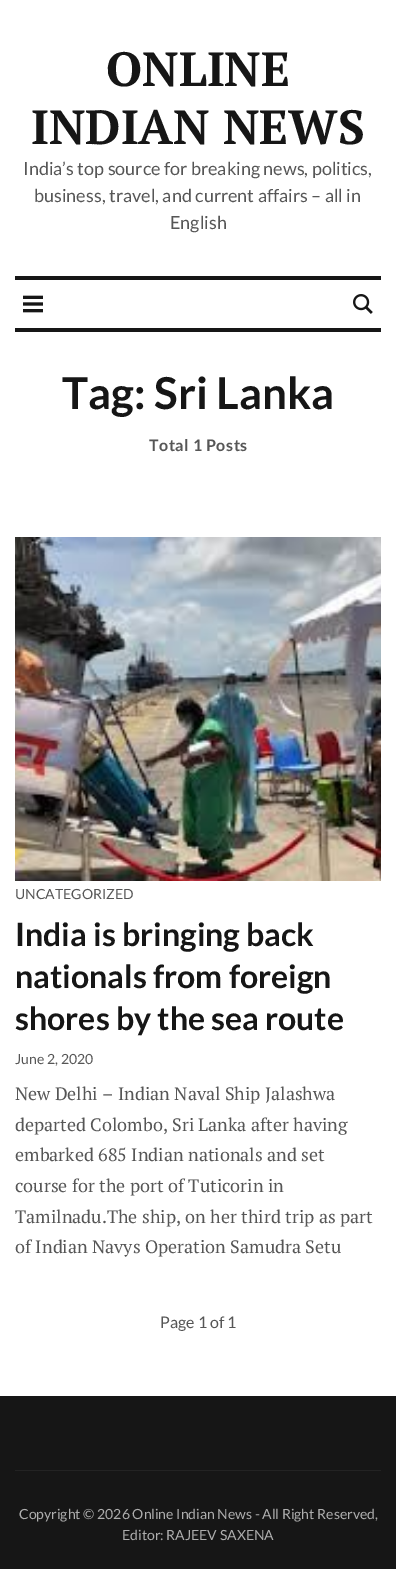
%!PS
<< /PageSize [396 1569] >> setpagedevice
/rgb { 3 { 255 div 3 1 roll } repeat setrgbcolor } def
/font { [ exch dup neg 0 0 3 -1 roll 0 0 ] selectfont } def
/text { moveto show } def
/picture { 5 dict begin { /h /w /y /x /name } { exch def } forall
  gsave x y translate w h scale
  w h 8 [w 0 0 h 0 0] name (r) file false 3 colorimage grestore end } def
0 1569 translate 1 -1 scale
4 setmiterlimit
255 255 255 rgb
0 0 396 1569 rectfill
22 22 22 rgb
15 276 366 4 rectfill
15 328 366 4 rectfill
(img_01.rgb) 23 295 20 18 picture
(img_02.rgb) 353 294 20 20 picture
(img_03.rgb) 15 537 366 344 picture
0 1396 396 173 rectfill
35 35 35 rgb
15 1470 366 1 rectfill
/PTSerif-Bold 48 font
22 22 22 rgb
(ONLINE) 106 86 text
(INDIAN NEWS) 31 144 text
/Lato-Regular 18 font
86 86 86 rgb
(India’s top source for breaking news, politics,) 23 175 text
(business, travel, and current affairs – all in) 34 202 text
(English) 170 229 text
/Lato-Bold 44 font
22 22 22 rgb
(Tag: Sri Lanka) 62 409 text
/Lato-Bold 16 font
86 86 86 rgb
149 451 moveto 0.5 0 (Total 1 Posts) ashow
/Lato-Regular 14 font
(UNCATEGORIZED) 15 899 text
/Lato-Bold 32 font
22 22 22 rgb
(India is bringing back) 15 946 text
(nationals from foreign) 15 988 text
(shores by the sea route) 15 1030 text
/Lato-Regular 14 font
86 86 86 rgb
(June 2, 2020) 15 1064 text
/PTSerif-Regular 18 font
(New Delhi – Indian Naval Ship Jalashwa) 15 1100 text
(departed Colombo, Sri Lanka after having) 15 1131 text
(embarked 685 Indian nationals and set) 15 1161 text
(course for the port of Tuticorin in) 15 1192 text
(Tamilnadu.The ship, on her third trip as part) 15 1223 text
(of Indian Navys Operation Samudra Setu) 15 1253 text
/Lato-Regular 16 font
(Page 1 of 1) 160 1328 text
/Lato-Regular 14 font
174 174 174 rgb
(Copyright © 2026 Online Indian News - All Right Reserved,) 19 1519 text
(Editor: RAJEEV SAXENA) 122 1540 text
showpage
